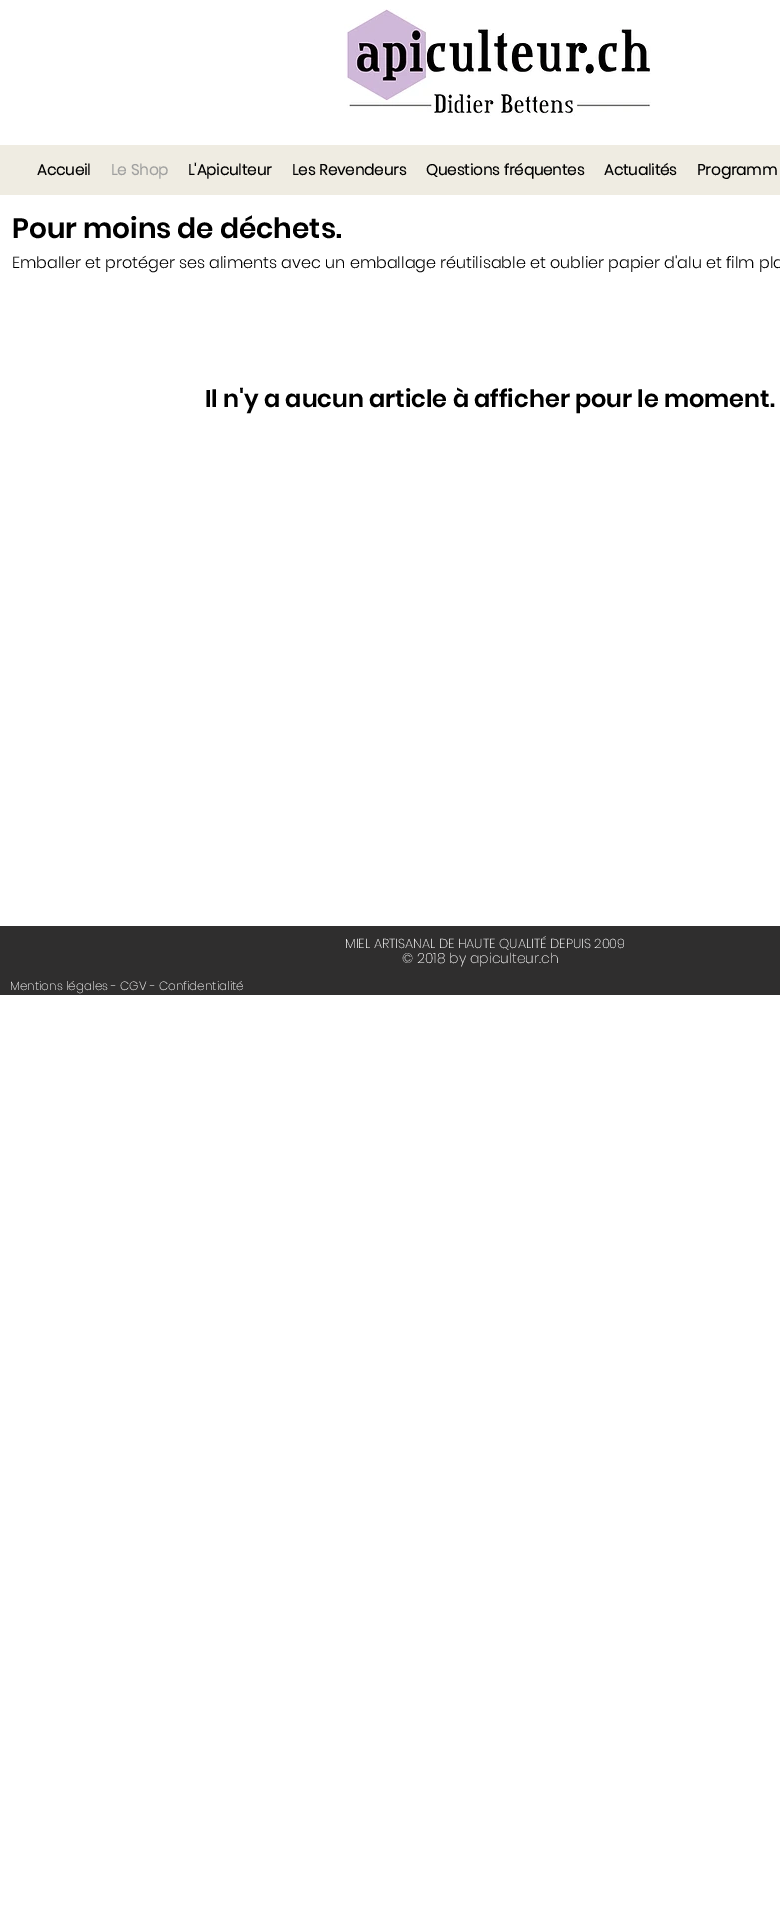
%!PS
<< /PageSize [780 1927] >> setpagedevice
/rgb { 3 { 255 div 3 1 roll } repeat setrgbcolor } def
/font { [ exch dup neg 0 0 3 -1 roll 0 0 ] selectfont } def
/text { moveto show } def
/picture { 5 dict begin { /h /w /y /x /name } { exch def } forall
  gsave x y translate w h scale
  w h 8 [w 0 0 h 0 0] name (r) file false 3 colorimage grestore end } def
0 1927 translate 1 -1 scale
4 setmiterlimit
255 255 255 rgb
0 0 780 1927 rectfill
(img_01.rgb) 344 9 307 107 picture
239 236 226 rgb
0 145 780 50 rectfill
47 46 46 rgb
0 926 780 69 rectfill
/Poppins-Bold 15 font
0 0 0 rgb
(Accueil) 37 175 text
160 160 159 rgb
(Le Shop) 111 175 text
0 0 0 rgb
(L'Apiculteur) 188 175 text
(Les Revendeurs) 292 175 text
(Questions fréquentes) 426 175 text
(Actualités) 604 175 text
(Programm) 697 175 text
/Poppins-SemiBold 28 font
(Pour moins de déchets.) 12 238 text
/Poppins-Light 16 font
(Emballer et protéger ses aliments avec un emballage réutilisable et oublier papier d'alu et film pla) 12 268 text
/Poppins-SemiBold 24 font
(Il n'y a aucun article à afficher pour le moment.) 205 407 text
/Poppins-ExtraLight 13 font
255 255 255 rgb
(MIEL ARTISANAL DE HAUTE QUALITÉ DEPUIS 2009) 345 948 text
/Poppins-ExtraLight 14 font
(© 2018 by apiculteur.ch) 402 963 text
/Poppins-ExtraLight 12 font
(Mentions légales - CGV - Confidentialité) 10 990 text
showpage
